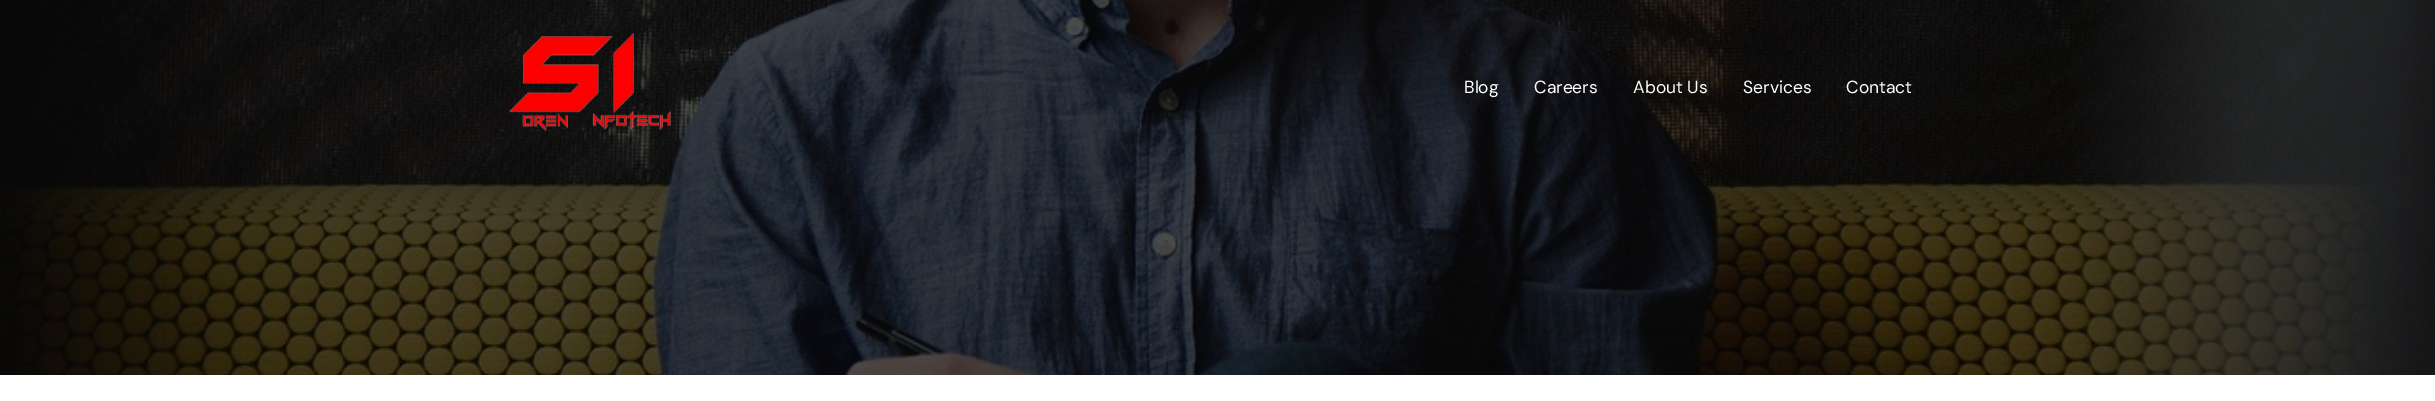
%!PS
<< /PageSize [2435 401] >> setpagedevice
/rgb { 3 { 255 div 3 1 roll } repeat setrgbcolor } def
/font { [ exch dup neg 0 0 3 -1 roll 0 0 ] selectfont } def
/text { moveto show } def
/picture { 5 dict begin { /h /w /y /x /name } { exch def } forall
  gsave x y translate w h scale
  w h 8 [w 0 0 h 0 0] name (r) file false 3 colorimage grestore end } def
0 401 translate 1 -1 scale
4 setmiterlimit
255 255 255 rgb
0 0 2435 401 rectfill
(img_01.rgb) 0 0 2435 375 picture
(img_02.rgb) 509 33 162 99 picture
/DMSans-Regular 17.5 font
(Blog) 1464 93 text
(Careers) 1534 93 text
(About Us) 1633 93 text
(Services) 1743 93 text
(Contact) 1846 93 text
showpage
